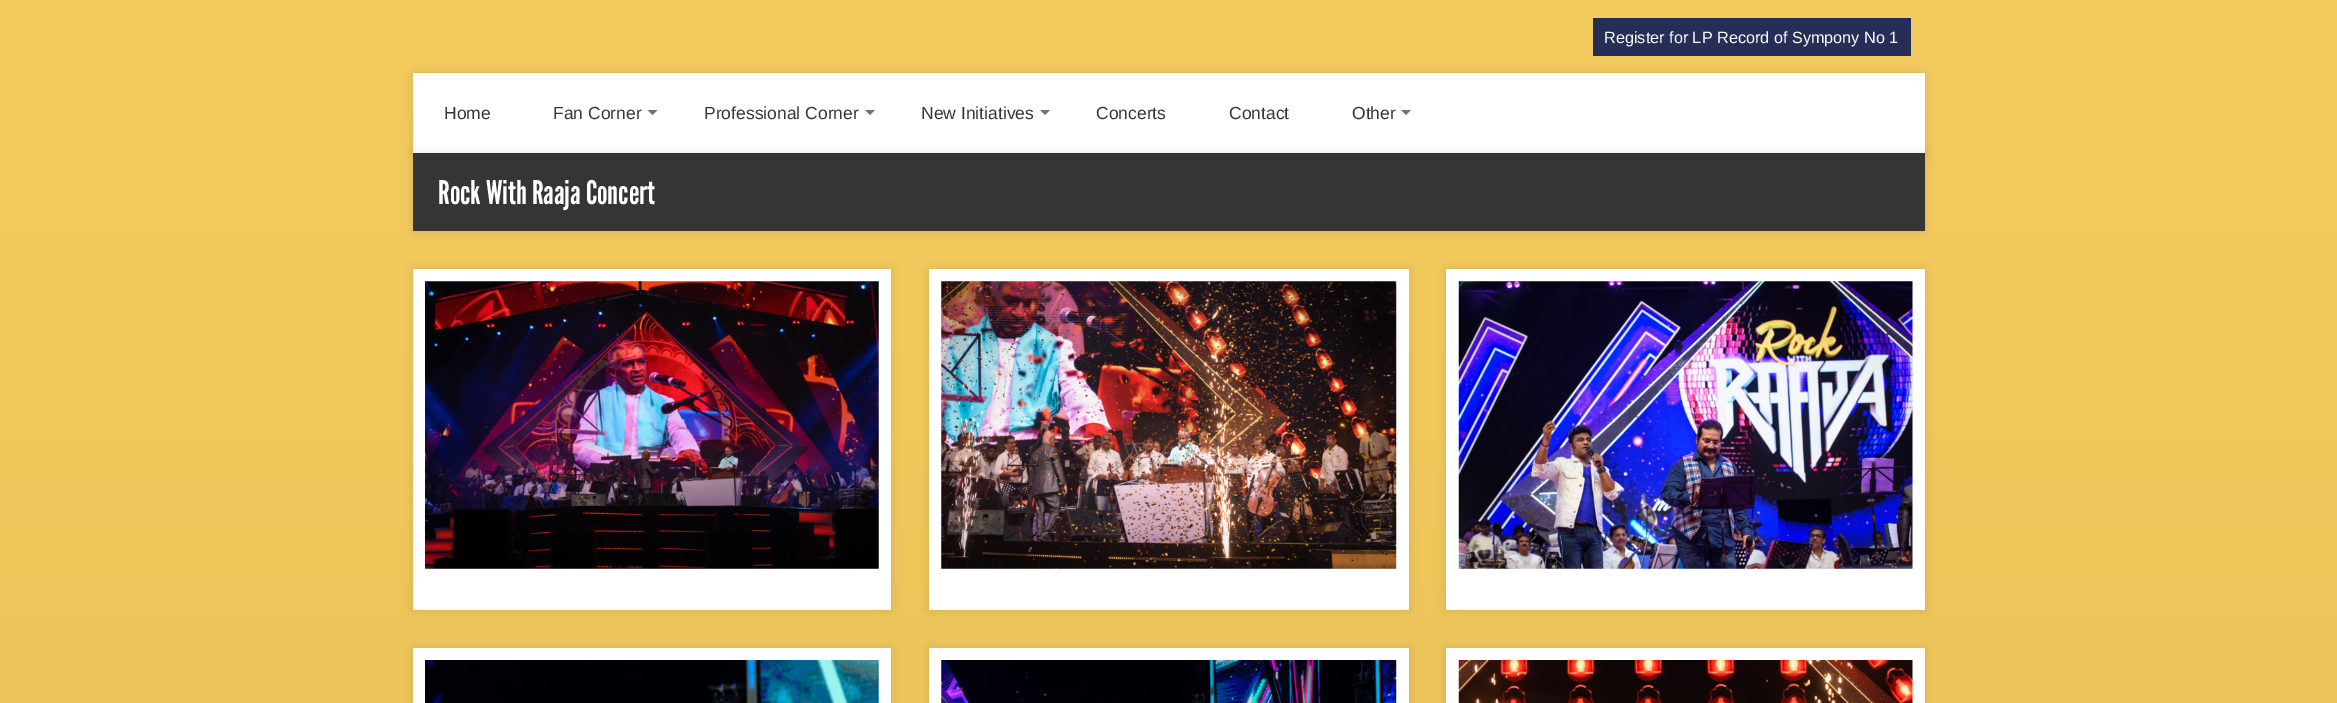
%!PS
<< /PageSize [2337 703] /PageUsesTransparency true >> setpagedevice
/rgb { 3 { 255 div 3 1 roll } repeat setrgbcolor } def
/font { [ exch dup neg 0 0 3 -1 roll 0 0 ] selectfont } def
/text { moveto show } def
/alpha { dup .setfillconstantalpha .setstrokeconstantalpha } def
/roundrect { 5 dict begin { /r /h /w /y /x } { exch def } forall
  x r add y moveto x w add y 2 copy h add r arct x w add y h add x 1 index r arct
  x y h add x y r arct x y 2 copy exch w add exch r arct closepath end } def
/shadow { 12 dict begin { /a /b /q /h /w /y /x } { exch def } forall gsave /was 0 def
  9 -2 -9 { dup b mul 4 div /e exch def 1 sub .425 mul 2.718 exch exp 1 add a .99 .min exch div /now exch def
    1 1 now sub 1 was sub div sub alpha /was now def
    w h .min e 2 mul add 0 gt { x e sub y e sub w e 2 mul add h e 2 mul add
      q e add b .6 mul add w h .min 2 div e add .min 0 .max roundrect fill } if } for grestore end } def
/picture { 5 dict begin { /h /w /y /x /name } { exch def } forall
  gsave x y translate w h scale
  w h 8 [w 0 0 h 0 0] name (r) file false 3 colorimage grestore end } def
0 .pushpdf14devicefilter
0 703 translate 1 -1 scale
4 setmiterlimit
255 255 255 rgb
0 0 2337 703 rectfill
gsave 0 0 moveto 2337 0 rlineto 0 703 rlineto -2337 0 rlineto closepath clip newpath
<< /ShadingType 2 /ColorSpace /DeviceRGB /Coords [1169 0 1169 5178] /Extend [true true] /Function << /FunctionType 2 /Domain [0 1] /C0 [0.953 0.796 0.373] /C1 [0.761 0.616 0.216] /N 1 >> >> shfill grestore
38 46 87 rgb
1593 18 318 38 rectfill
0 0 0 rgb
413 73 1512 80 0 4.5 0.1 shadow
255 255 255 rgb
413 73 1512 80 rectfill
114 114 114 rgb
647.5 110 moveto 10 0 rlineto -5 5 rlineto closepath fill
865 110 moveto 10 0 rlineto -5 5 rlineto closepath fill
1040 110 moveto 10 0 rlineto -5 5 rlineto closepath fill
1401 110 moveto 10 0 rlineto -5 5 rlineto closepath fill
0 0 0 rgb
413 153 1512 78 0 4.5 0.1 shadow
53 53 53 rgb
413 153 1512 78 rectfill
0 0 0 rgb
413 269 478 341 0 4.5 0.1 shadow
255 255 255 rgb
413 269 478 341 rectfill
(img_01.rgb) 425 281 454 288 picture
0 0 0 rgb
929 269 480 341 0 4.5 0.1 shadow
255 255 255 rgb
929 269 480 341 rectfill
(img_02.rgb) 941 281 456 288 picture
0 0 0 rgb
1446 269 479 341 0 4.5 0.1 shadow
255 255 255 rgb
1446 269 479 341 rectfill
(img_03.rgb) 1458 281 455 288 picture
0 0 0 rgb
413 648 478 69 0 4.5 0.1 shadow
255 255 255 rgb
413 648 478 55 rectfill
(img_04.rgb) 425 660 454 43 picture
0 0 0 rgb
929 648 480 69 0 4.5 0.1 shadow
255 255 255 rgb
929 648 480 55 rectfill
(img_05.rgb) 941 660 456 43 picture
0 0 0 rgb
1446 648 479 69 0 4.5 0.1 shadow
255 255 255 rgb
1446 648 479 55 rectfill
(img_06.rgb) 1458 660 455 43 picture
/LiberationSans-Regular 16.25 font
(Register for LP Record of Sympony No 1) 1604 43 text
/LiberationSans-Regular 17.5 font
53 53 53 rgb
(Home) 444 119 text
(Fan Corner) 553 119 text
(Professional Corner) 704 119 text
(New Initiatives) 921 119 text
(Concerts) 1096 119 text
(Contact) 1229 119 text
(Other) 1352 119 text
/LeagueGothic-Regular 32.5 font
255 255 255 rgb
(Rock With Raaja Concert) 438 204 text
.poppdf14devicefilter showpage
